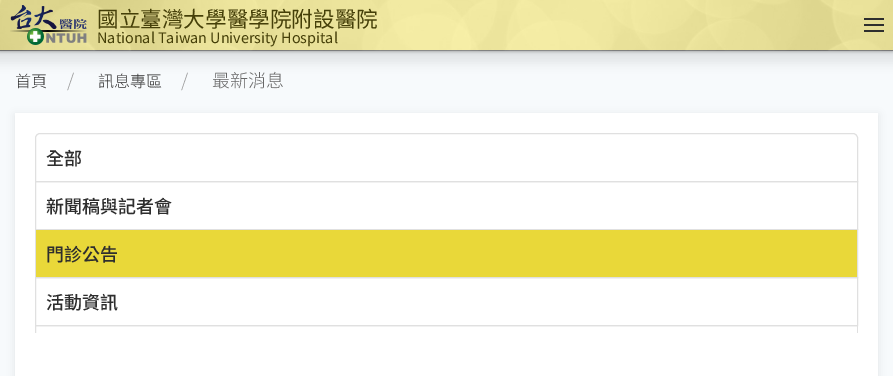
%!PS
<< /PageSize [893 376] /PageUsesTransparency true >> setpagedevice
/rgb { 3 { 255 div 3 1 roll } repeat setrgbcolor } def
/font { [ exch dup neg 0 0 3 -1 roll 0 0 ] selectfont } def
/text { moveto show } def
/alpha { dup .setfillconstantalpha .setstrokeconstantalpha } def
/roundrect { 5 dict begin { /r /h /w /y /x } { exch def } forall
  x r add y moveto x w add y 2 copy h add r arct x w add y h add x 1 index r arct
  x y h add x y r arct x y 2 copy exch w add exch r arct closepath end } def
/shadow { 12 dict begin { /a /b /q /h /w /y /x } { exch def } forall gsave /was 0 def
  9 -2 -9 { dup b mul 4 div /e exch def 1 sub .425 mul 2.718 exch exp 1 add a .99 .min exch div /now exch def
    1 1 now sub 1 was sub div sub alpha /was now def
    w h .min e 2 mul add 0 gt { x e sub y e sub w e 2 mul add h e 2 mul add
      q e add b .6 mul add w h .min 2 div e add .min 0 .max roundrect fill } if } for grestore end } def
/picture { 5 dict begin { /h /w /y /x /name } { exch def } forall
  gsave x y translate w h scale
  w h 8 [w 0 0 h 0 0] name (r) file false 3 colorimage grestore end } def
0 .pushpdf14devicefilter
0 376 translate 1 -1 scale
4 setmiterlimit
247 250 252 rgb
0 0 893 376 rectfill
0 0 0 rgb
0 1 893 51 0 1 0.06 shadow
0 1 893 51 0 1.5 0.1 shadow
0 1 893 50 0 1 0.06 shadow
0 1 893 50 0 1.5 0.1 shadow
-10 -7 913 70 0 5 0.08 shadow
255 240 95 rgb
0 0 893 50 rectfill
0.8 alpha
0 0 0 rgb
0 50 893 1 rectfill
1 alpha
(img_01.rgb) 0 0 893 51 picture
(img_02.rgb) 10 5 77 40 picture
46 46 46 rgb
864 24 20 2 rectfill
864 18 20 2 rectfill
864 30 20 2 rectfill
0 0 0 rgb
15 115 863 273 0 4 0.08 shadow
255 255 255 rgb
15 113 863 263 rectfill
224 224 224 rgb
40 133.5 moveto 813 0 rlineto 2.5 0 4.5 2 4.5 4.5 rcurveto 0 43.5 rlineto -822 0 rlineto 0 -43.5 rlineto 0 -2.5 2 -4.5 4.5 -4.5 rcurveto closepath stroke
35.5 181.5 822 48 rectstroke
35.5 229.5 822 48 rectstroke
233 216 57 rgb
36 230 821 47 rectfill
224 224 224 rgb
35.5 277.5 822 48 rectstroke
gsave
35 133 823 200 rectclip
35.5 325.5 822 48 rectstroke
grestore
/NotoSansTC-Regular 21.6 font
69 63 8 rgb
(國立臺灣大學醫學院附設醫院) 97 27 text
/NotoSansTC-Regular 14.4 font
(National Taiwan University Hospital) 97 43 text
/NotoSansTC-Light 16 font
46 46 46 rgb
(首頁) 15 87 text
/NotoSansTC-Light 18 font
153 153 153 rgb
(/) 67 87 text
/NotoSansTC-Light 16 font
46 46 46 rgb
(訊息專區) 98 87 text
/NotoSansTC-Light 18 font
153 153 153 rgb
(/) 181 87 text
102 102 102 rgb
(最新消息) 212 87 text
/NotoSansTC-Medium 18 font
46 46 46 rgb
(全部) 46 165 text
(新聞稿與記者會) 46 213 text
(門診公告) 46 261 text
(活動資訊) 46 309 text
.poppdf14devicefilter showpage
